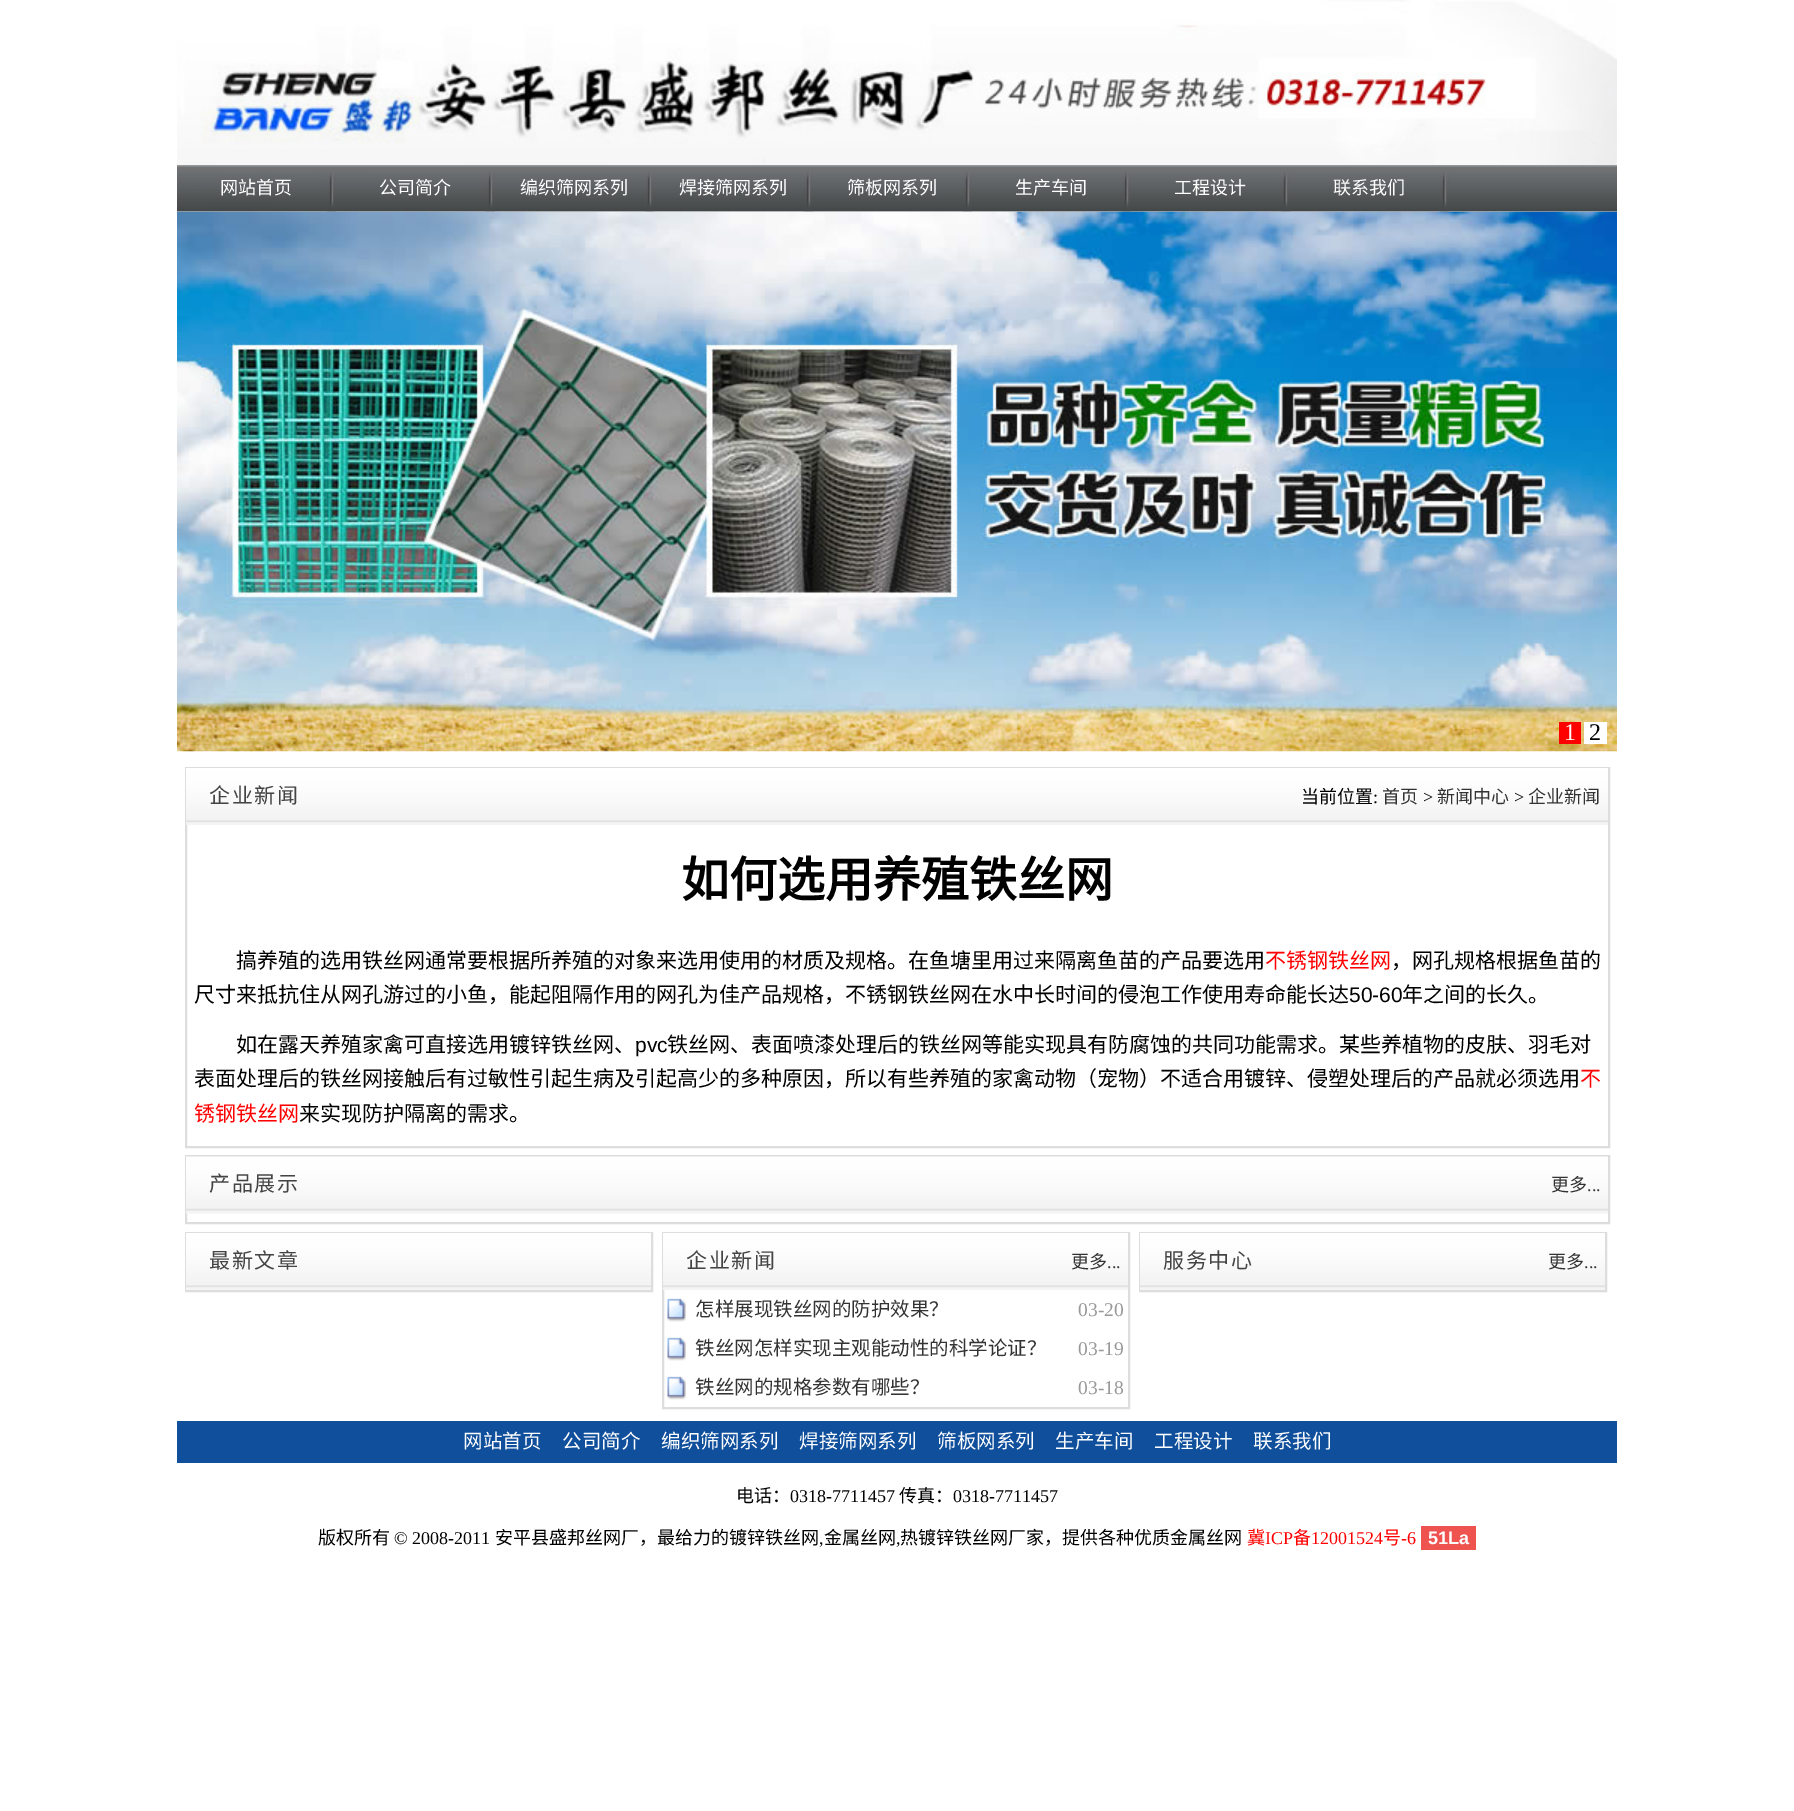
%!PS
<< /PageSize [1794 1811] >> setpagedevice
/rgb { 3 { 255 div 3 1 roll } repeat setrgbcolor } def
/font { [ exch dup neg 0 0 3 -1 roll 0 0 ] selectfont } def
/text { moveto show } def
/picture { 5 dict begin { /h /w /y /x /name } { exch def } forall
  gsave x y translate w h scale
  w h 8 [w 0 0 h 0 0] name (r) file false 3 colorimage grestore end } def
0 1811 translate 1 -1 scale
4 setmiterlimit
255 255 255 rgb
0 0 1794 1811 rectfill
(img_01.rgb) 177 0 1440 165 picture
(img_02.rgb) 177 165 1440 47 picture
(img_03.rgb) 327 172 9 40 picture
(img_03.rgb) 486 172 9 40 picture
(img_04.rgb) 645 172 9 40 picture
(img_04.rgb) 804 172 9 40 picture
(img_04.rgb) 963 172 9 40 picture
(img_03.rgb) 1122 172 9 40 picture
(img_04.rgb) 1281 172 9 40 picture
(img_04.rgb) 1440 172 9 40 picture
(img_05.rgb) 177 211 1440 541 picture
255 0 0 rgb
1559 722 22 22 rectfill
255 255 255 rgb
1584 722 23 22 rectfill
221 221 221 rgb
2 setlinewidth
186 768 1423 379 rectstroke
(img_06.rgb) 186 768 1422 57 picture
186 1156 1423 67 rectstroke
(img_07.rgb) 186 1156 1422 58 picture
186 1233 466 58 rectstroke
(img_08.rgb) 186 1233 465 57 picture
663 1233 466 175 rectstroke
(img_09.rgb) 663 1233 465 57 picture
(img_10.rgb) 667 1298 19 24 picture
(img_10.rgb) 667 1337 19 24 picture
(img_10.rgb) 667 1376 19 24 picture
1140 1233 466 58 rectstroke
(img_11.rgb) 1140 1233 465 57 picture
16 79 156 rgb
177 1421 1440 42 rectfill
239 83 80 rgb
1421 1526 55 24 rectfill
/NotoSansCJKSC-Regular 18 font
255 255 255 rgb
(网站首页) 220 194 text
(公司简介) 379 194 text
(编织筛网系列) 520 194 text
(焊接筛网系列) 679 194 text
(筛板网系列) 847 194 text
(生产车间) 1015 194 text
(工程设计) 1174 194 text
(联系我们) 1333 194 text
/LiberationSerif-Regular 24 font
(1) 1564 740 text
0 0 0 rgb
(2) 1589 740 text
/NotoSansCJKSC-Regular 21 font
68 68 68 rgb
209 803 moveto 1.5 0 (企业新闻) ashow
/NotoSansCJKSC-Regular 18 font
0 0 0 rgb
(当前位置) 1301 803 text
/LiberationSerif-Regular 18 font
(:) 1373 803 text
/NotoSansCJKSC-Regular 18 font
51 51 51 rgb
(首页) 1382 803 text
/LiberationSerif-Regular 18 font
0 0 0 rgb
(>) 1423 803 text
/NotoSansCJKSC-Regular 18 font
51 51 51 rgb
(新闻中心) 1437 803 text
/LiberationSerif-Regular 18 font
0 0 0 rgb
(>) 1514 803 text
/NotoSansCJKSC-Regular 18 font
51 51 51 rgb
(企业新闻) 1528 803 text
/NotoSansCJKSC-Bold 48 font
0 0 0 rgb
(如何选用养殖铁丝网) 681 897 text
/NotoSansCJKSC-Regular 21 font
(搞养殖的选用铁丝网通常要根据所养殖的对象来选用使用的材质及规格。在鱼塘里用过来隔离鱼苗的产品要选用) 236 968 text
255 0 0 rgb
(不锈钢铁丝网) 1265 968 text
0 0 0 rgb
(，网孔规格根据鱼苗的) 1391 968 text
(尺寸来抵抗住从网孔游过的小鱼，能起阻隔作用的网孔为佳产品规格，不锈钢铁丝网在水中长时间的侵泡工作使用寿命能长达) 194 1002 text
/LiberationSans-Regular 21 font
(50-60) 1349 1002 text
/NotoSansCJKSC-Regular 21 font
(年之间的长久。) 1402 1002 text
(如在露天养殖家禽可直接选用镀锌铁丝网、) 236 1052 text
/LiberationSans-Regular 21 font
(pvc) 635 1052 text
/NotoSansCJKSC-Regular 21 font
(铁丝网、表面喷漆处理后的铁丝网等能实现具有防腐蚀的共同功能需求。某些养植物的皮肤、羽毛对) 667 1052 text
(表面处理后的铁丝网接触后有过敏性引起生病及引起高少的多种原因，所以有些养殖的家禽动物（宠物）不适合用镀锌、侵塑处理后的产品就必须选用) 194 1086 text
255 0 0 rgb
(不) 1580 1086 text
(锈钢铁丝网) 194 1121 text
0 0 0 rgb
(来实现防护隔离的需求。) 299 1121 text
68 68 68 rgb
209 1191 moveto 1.5 0 (产品展示) ashow
/NotoSansCJKSC-Regular 18 font
51 51 51 rgb
(更多) 1551 1191 text
/LiberationSerif-Regular 18 font
(...) 1587 1191 text
/NotoSansCJKSC-Regular 21 font
68 68 68 rgb
209 1268 moveto 1.5 0 (最新文章) ashow
686 1268 moveto 1.5 0 (企业新闻) ashow
/NotoSansCJKSC-Regular 18 font
51 51 51 rgb
(更多) 1071 1268 text
/LiberationSerif-Regular 18 font
(...) 1107 1268 text
/NotoSansCJKSC-Regular 19.5 font
(怎样展现铁丝网的防护效果？) 695 1316 text
/LiberationSerif-Regular 19.5 font
153 153 153 rgb
(03-20) 1078 1316 text
/NotoSansCJKSC-Regular 19.5 font
51 51 51 rgb
(铁丝网怎样实现主观能动性的科学论证？) 695 1355 text
/LiberationSerif-Regular 19.5 font
153 153 153 rgb
(03-19) 1078 1355 text
/NotoSansCJKSC-Regular 19.5 font
51 51 51 rgb
(铁丝网的规格参数有哪些？) 695 1394 text
/LiberationSerif-Regular 19.5 font
153 153 153 rgb
(03-18) 1078 1394 text
/NotoSansCJKSC-Regular 21 font
68 68 68 rgb
1163 1268 moveto 1.5 0 (服务中心) ashow
/NotoSansCJKSC-Regular 18 font
51 51 51 rgb
(更多) 1548 1268 text
/LiberationSerif-Regular 18 font
(...) 1584 1268 text
/NotoSansCJKSC-Regular 19.5 font
255 255 255 rgb
(网站首页) 463 1448 text
(公司简介) 562 1448 text
(编织筛网系列) 661 1448 text
(焊接筛网系列) 799 1448 text
(筛板网系列) 937 1448 text
(生产车间) 1055 1448 text
(工程设计) 1154 1448 text
(联系我们) 1253 1448 text
/NotoSansCJKSC-Regular 18 font
0 0 0 rgb
(电话：) 736 1502 text
/LiberationSerif-Regular 18 font
(0318-7711457) 790 1502 text
/NotoSansCJKSC-Regular 18 font
(传真：) 899 1502 text
/LiberationSerif-Regular 18 font
(0318-7711457) 953 1502 text
/NotoSansCJKSC-Regular 18 font
(版权所有) 318 1544 text
/LiberationSerif-Regular 18 font
(© 2008-2011) 394 1544 text
/NotoSansCJKSC-Regular 18 font
(安平县盛邦丝网厂，最给力的镀锌铁丝网) 495 1544 text
/LiberationSerif-Regular 18 font
(,) 819 1544 text
/NotoSansCJKSC-Regular 18 font
(金属丝网) 824 1544 text
/LiberationSerif-Regular 18 font
(,) 896 1544 text
/NotoSansCJKSC-Regular 18 font
(热镀锌铁丝网厂家，提供各种优质金属丝网) 900 1544 text
255 0 0 rgb
(冀) 1247 1544 text
/LiberationSerif-Regular 18 font
(ICP) 1265 1544 text
/NotoSansCJKSC-Regular 18 font
(备) 1293 1544 text
/LiberationSerif-Regular 18 font
(12001524) 1311 1544 text
/NotoSansCJKSC-Regular 18 font
(号) 1383 1544 text
/LiberationSerif-Regular 18 font
(-6) 1401 1544 text
/LiberationSans-Bold 18 font
255 255 255 rgb
(51La) 1428 1544 text
showpage
